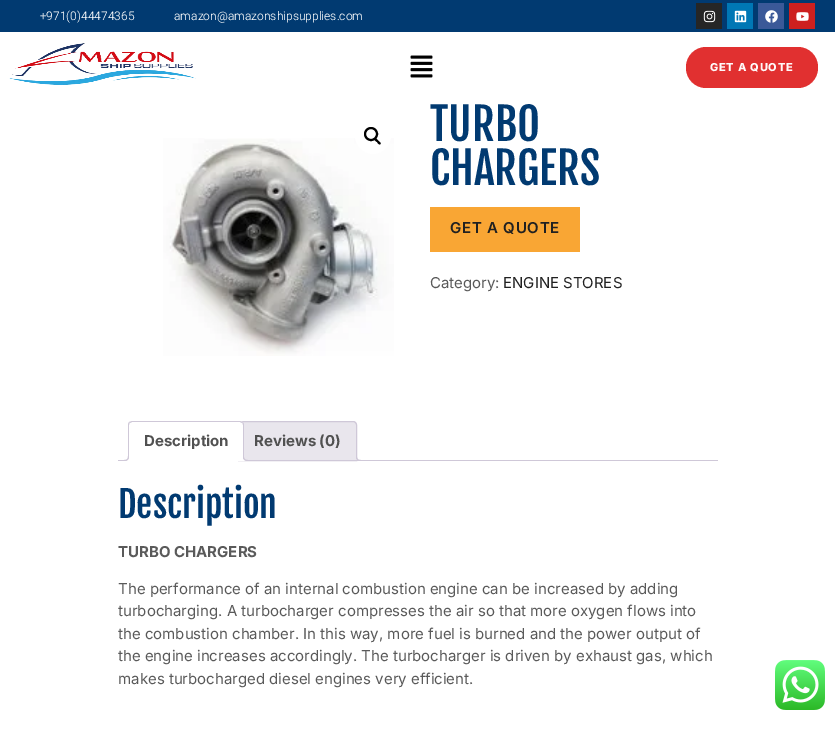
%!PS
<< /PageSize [835 745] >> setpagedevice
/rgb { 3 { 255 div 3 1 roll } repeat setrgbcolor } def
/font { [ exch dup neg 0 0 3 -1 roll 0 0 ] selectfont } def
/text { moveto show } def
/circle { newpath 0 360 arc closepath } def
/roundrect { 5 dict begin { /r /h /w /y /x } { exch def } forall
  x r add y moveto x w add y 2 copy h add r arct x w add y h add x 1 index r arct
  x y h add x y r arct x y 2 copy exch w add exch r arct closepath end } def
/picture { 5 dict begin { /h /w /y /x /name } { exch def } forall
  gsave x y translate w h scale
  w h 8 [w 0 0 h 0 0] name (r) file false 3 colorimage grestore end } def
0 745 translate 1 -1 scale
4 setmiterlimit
255 255 255 rgb
0 0 835 745 rectfill
1 58 113 rgb
0 0 835 32 rectfill
38 38 38 rgb
696 3 26 26 rectfill
(img_01.rgb) 703 10 13 13 picture
0 119 181 rgb
727 3 26 26 rectfill
(img_02.rgb) 734 10 13 13 picture
59 89 152 rgb
758 3 26 26 rectfill
(img_03.rgb) 765 10 13 13 picture
205 32 31 rgb
789 3 26 26 rectfill
(img_04.rgb) 796 12 13 9 picture
(img_05.rgb) 9 43 187 42 picture
(img_06.rgb) 410 55 23 23 picture
225 48 48 rgb
686 47 132 41 20 roundrect fill
(img_07.rgb) 163 138 231 218 picture
255 255 255 rgb
373 136 18 circle fill
0 0 0 rgb
2 setlinewidth
371 134 6 circle stroke
374.5 138.5 moveto 1.5 -1 3 1.5 3.5 2 rcurveto 1 1 3.5 2.5 2.5 3.5 rcurveto -1.5 1.5 -3 -1.5 -3.5 -2 rcurveto -1 -0.5 -3.5 -2.5 -2.5 -3.5 rcurveto closepath fill
249 166 52 rgb
430 207 150 45 rectfill
233 230 237 rgb
242 421.5 moveto 111 0 rlineto 2 0 3.5 1.5 3.5 3.5 rcurveto 0 35.5 rlineto -118 0 rlineto 0 -35.5 rlineto 0 -2 1.5 -3.5 3.5 -3.5 rcurveto closepath gsave fill grestore
207 200 216 rgb
1 setlinewidth
stroke
gsave
118 421 600 40 rectclip
233 230 237 rgb
354 458 moveto 0 3.5 1.5 5 5 5 rcurveto 0 -2 rlineto -1.5 -0.5 -2.5 -1.5 -3 -3 rcurveto closepath fill
grestore
356 456 moveto 5 0 rlineto 0 5 rlineto -2.5 0 -5 -1 -5 -4 rcurveto closepath 357 456 moveto 4 0 rlineto 0 4 rlineto -2 0 -4 -0.5 -4 -3 rcurveto closepath eofill
118 460 600 1 rectfill
255 255 255 rgb
132 421 moveto 108 0 rlineto 2 0 4 2 4 4 rcurveto 0 36 rlineto -116 0 rlineto 0 -36 rlineto 0 -2 2 -4 4 -4 rcurveto closepath fill
207 200 216 rgb
132 421 moveto -3 1 rlineto 1 1 rlineto 2 -1 rlineto 108 0 rlineto 2 1 rlineto 1 -1 rlineto -3 -1 rlineto closepath fill
244 461 moveto 0 -36 rlineto 0 -1 -0.5 -2 -1 -3 rcurveto -1 1 rlineto 1 0 1 1 1 2 rcurveto 0 35 rlineto closepath fill
255 255 255 rgb
244 461 moveto -1 -1 rlineto -114 0 rlineto -1 1 rlineto closepath fill
207 200 216 rgb
128 461 moveto 1 -1 rlineto 0 -35 rlineto 0 -1 0 -2 1 -2 rcurveto -1 -1 rlineto -0.5 1 -1 2 -1 3 rcurveto closepath fill
gsave
118 421 600 40 rectclip
255 255 255 rgb
126 461 moveto 0 2 rlineto 3.5 0 5 -1.5 5 -5 rcurveto -2 0 rlineto -0.5 1.5 -1.5 2.5 -3 3 rcurveto closepath fill
grestore
124 456 moveto 5 0 rlineto 0 3.5 -1.5 5 -5 5 rcurveto closepath 124 456 moveto 4 0 rlineto 0 3 -1 4 -4 4 rcurveto closepath eofill
gsave
118 421 600 40 rectclip
255 255 255 rgb
241 458 moveto 0 3.5 1.5 5 5 5 rcurveto 0 -2 rlineto -1.5 -0.5 -2.5 -1.5 -3 -3 rcurveto closepath fill
grestore
243 456 moveto 5 0 rlineto 0 5 rlineto -2.5 0 -5 -1 -5 -4 rcurveto closepath 244 456 moveto 4 0 rlineto 0 4 rlineto -2 0 -4 -0.5 -4 -3 rcurveto closepath eofill
(img_08.rgb) 775 660 50 50 picture
/Heebo-Light 12 font
255 255 255 rgb
(+971\(0\)44474365) 40 20 text
(amazon@amazonshipsupplies.com) 174 20 text
/Inter-ExtraBold 11 font
255 248 248 rgb
710 71 moveto 0.75 0 (GET A QUOTE) ashow
/FjallaOne-Regular 44 font
1 58 113 rgb
(TURBO) 430 141 text
(CHARGERS) 430 185 text
/Inter-SemiBold 15 font
33 33 33 rgb
450 233 moveto 0.75 0 (GET A QUOTE) ashow
/Inter-Regular 15 font
90 90 90 rgb
(Category:) 430 288 text
33 33 33 rgb
(ENGINE STORES) 503 288 text
/Inter-Bold 15 font
81 81 81 rgb
(Description) 144 446 text
(Reviews \(0\)) 254 446 text
/FjallaOne-Regular 36 font
1 58 113 rgb
(Description) 118 518 text
/Inter-Bold 15 font
90 90 90 rgb
(TURBO CHARGERS) 118 557 text
/Inter-Regular 15 font
(The performance of an internal combustion engine can be increased by adding) 118 594 text
(turbocharging. A turbocharger compresses the air so that more oxygen flows into) 118 616 text
(the combustion chamber. In this way, more fuel is burned and the power output of) 118 639 text
(the engine increases accordingly. The turbocharger is driven by exhaust gas, which) 118 661 text
(makes turbocharged diesel engines very efficient.) 118 684 text
showpage
